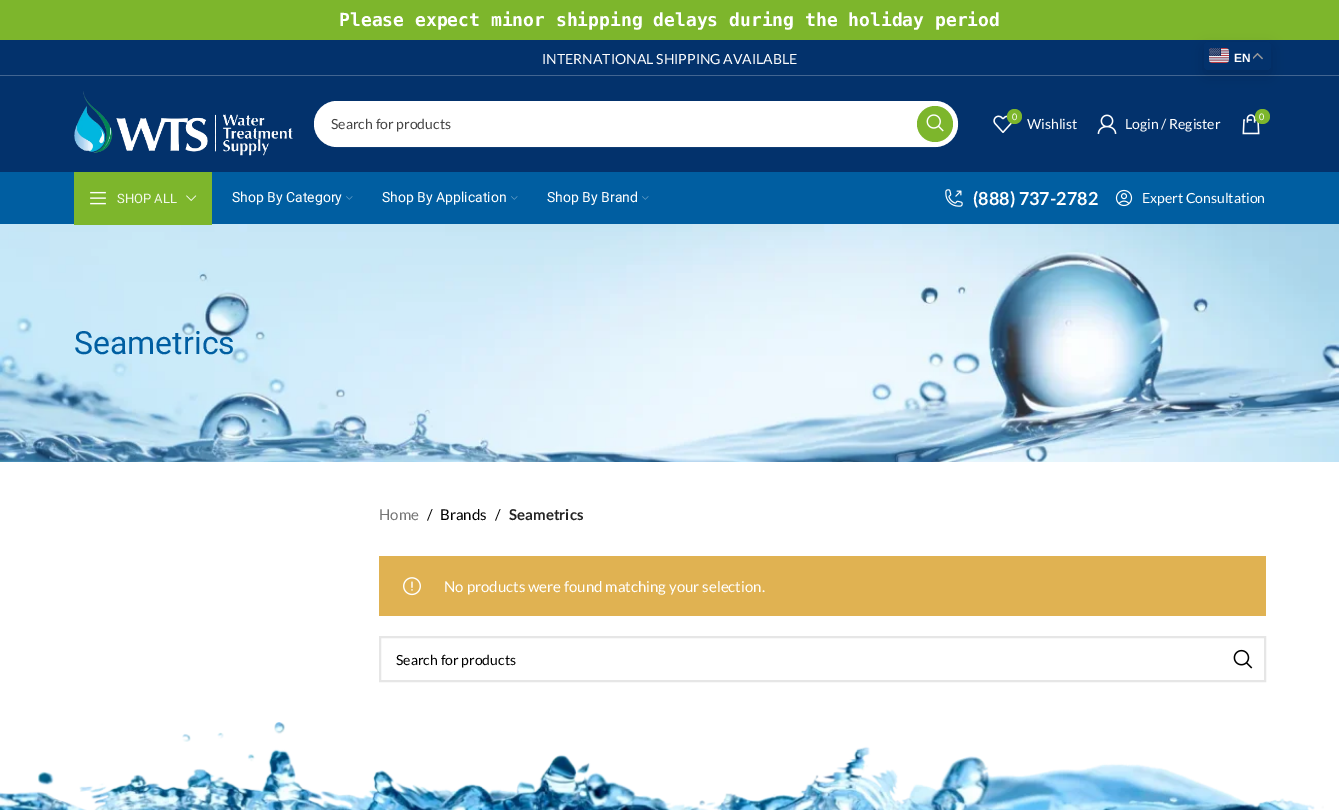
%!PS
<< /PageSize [1339 810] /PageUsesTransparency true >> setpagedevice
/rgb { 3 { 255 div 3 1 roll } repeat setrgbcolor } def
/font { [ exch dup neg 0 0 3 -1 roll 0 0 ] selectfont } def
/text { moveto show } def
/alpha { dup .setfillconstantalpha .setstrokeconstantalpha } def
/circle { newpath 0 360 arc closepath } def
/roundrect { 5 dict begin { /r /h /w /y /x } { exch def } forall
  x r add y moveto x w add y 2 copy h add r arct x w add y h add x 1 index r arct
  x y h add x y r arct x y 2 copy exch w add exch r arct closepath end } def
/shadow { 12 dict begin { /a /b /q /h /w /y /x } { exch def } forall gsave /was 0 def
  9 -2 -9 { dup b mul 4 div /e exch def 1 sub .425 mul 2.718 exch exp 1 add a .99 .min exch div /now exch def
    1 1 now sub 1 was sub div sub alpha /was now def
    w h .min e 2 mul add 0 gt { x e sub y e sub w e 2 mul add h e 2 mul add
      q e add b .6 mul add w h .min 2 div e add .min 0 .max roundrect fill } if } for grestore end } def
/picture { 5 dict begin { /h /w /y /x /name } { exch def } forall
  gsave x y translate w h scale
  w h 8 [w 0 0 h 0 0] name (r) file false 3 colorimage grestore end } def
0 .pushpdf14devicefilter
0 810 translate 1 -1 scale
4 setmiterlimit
255 255 255 rgb
0 0 1339 810 rectfill
125 182 44 rgb
0 0 1339 40 rectfill
3 50 108 rgb
0 40 1339 35 rectfill
66 101 145 rgb
0 75 1339 1 rectfill
3 50 108 rgb
0 76 1339 96 rectfill
gsave
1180 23 moveto 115 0 rlineto 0 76 rlineto -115 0 rlineto closepath 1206 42 moveto 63 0 rlineto 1 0 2 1 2 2 rcurveto 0 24 rlineto 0 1 -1 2 -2 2 rcurveto -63 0 rlineto -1 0 -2 -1 -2 -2 rcurveto 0 -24 rlineto 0 -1 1 -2 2 -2 rcurveto closepath eoclip newpath
0 0 0 rgb
1204 47 67 28 2 7.5 0.15 shadow
grestore
(img_01.rgb) 1209 48 20 15 picture
(img_02.rgb) 1253 53 10 7 picture
(img_03.rgb) 74 91 219 65 picture
255 255 255 rgb
314 101 644 46 23 roundrect fill
0.2 alpha
2 setlinewidth
315 102 642 44 22 roundrect stroke
1 alpha
125 182 44 rgb
935 124 18 circle fill
(img_04.rgb) 926 114 18 18 picture
(img_05.rgb) 993 115 20 18 picture
1014.5 116.5 7.5 circle fill
(img_06.rgb) 1242 114 18 21 picture
1262.5 116.5 7.5 circle fill
(img_07.rgb) 1097 114 20 20 picture
0 94 161 rgb
0 172 1339 52 rectfill
(img_13.rgb) 0 224 1339 238 picture
125 182 44 rgb
74 172 138 53 rectfill
(img_08.rgb) 90 191 16 14 picture
(img_09.rgb) 186 195 11 6 picture
(img_10.rgb) 346 196 7 4 picture
(img_10.rgb) 511 196 7 4 picture
(img_10.rgb) 642 196 7 4 picture
(img_11.rgb) 945 189 18 18 picture
(img_12.rgb) 1115 189 18 18 picture
224 178 82 rgb
379 556 887 60 rectfill
(img_14.rgb) 403 577 18 19 picture
230 230 230 rgb
380 637 885 44 rectstroke
(img_15.rgb) 1233 649 20 20 picture
(img_16.rgb) 0 722 1324 88 picture
/DejaVuSansMono-Bold 18 font
255 255 255 rgb
(Please expect minor shipping delays during the holiday period) 339 26 text
/Lato-Regular 14 font
(INTERNATIONAL SHIPPING AVAILABLE) 542 64 text
/LiberationSans-Bold 12 font
(EN) 1234 62 text
/Lato-Regular 14 font
68 68 68 rgb
(Search for products) 331 129 text
/Lato-Regular 9 font
255 255 255 rgb
(0) 1012 120 text
/Lato-Regular 14 font
(Wishlist) 1027 129 text
/Lato-Regular 9 font
(0) 1259 120 text
/Lato-Regular 14 font
(Login / Register) 1125 129 text
/Lato-Regular 16 font
185 200 211 rgb
(*) 1086 272 text
/Roboto-Regular 13 font
242 248 234 rgb
(SHOP ALL) 117 203 text
/Roboto-Regular 14 font
255 255 255 rgb
(Shop By Category) 232 202 text
(Shop By Application) 382 202 text
(Shop By Brand) 547 202 text
/Lato-Bold 18 font
(\(888\) 737-2782) 973 205 text
/Lato-Regular 14 font
(Expert Consultation) 1142 203 text
/Roboto-Regular 32 font
0 94 161 rgb
(Seametrics) 74 354 text
/Lato-Regular 15 font
118 118 118 rgb
(Home) 379 520 text
0 0 0 rgb
(/) 427 520 text
(Brands) 440 520 text
(/) 495 520 text
/Lato-Bold 15 font
36 36 36 rgb
(Seametrics) 509 520 text
/Lato-Regular 15 font
255 255 255 rgb
(No products were found matching your selection.) 444 592 text
/Lato-Regular 14 font
0 0 0 rgb
(Search for products) 396 665 text
.poppdf14devicefilter showpage
